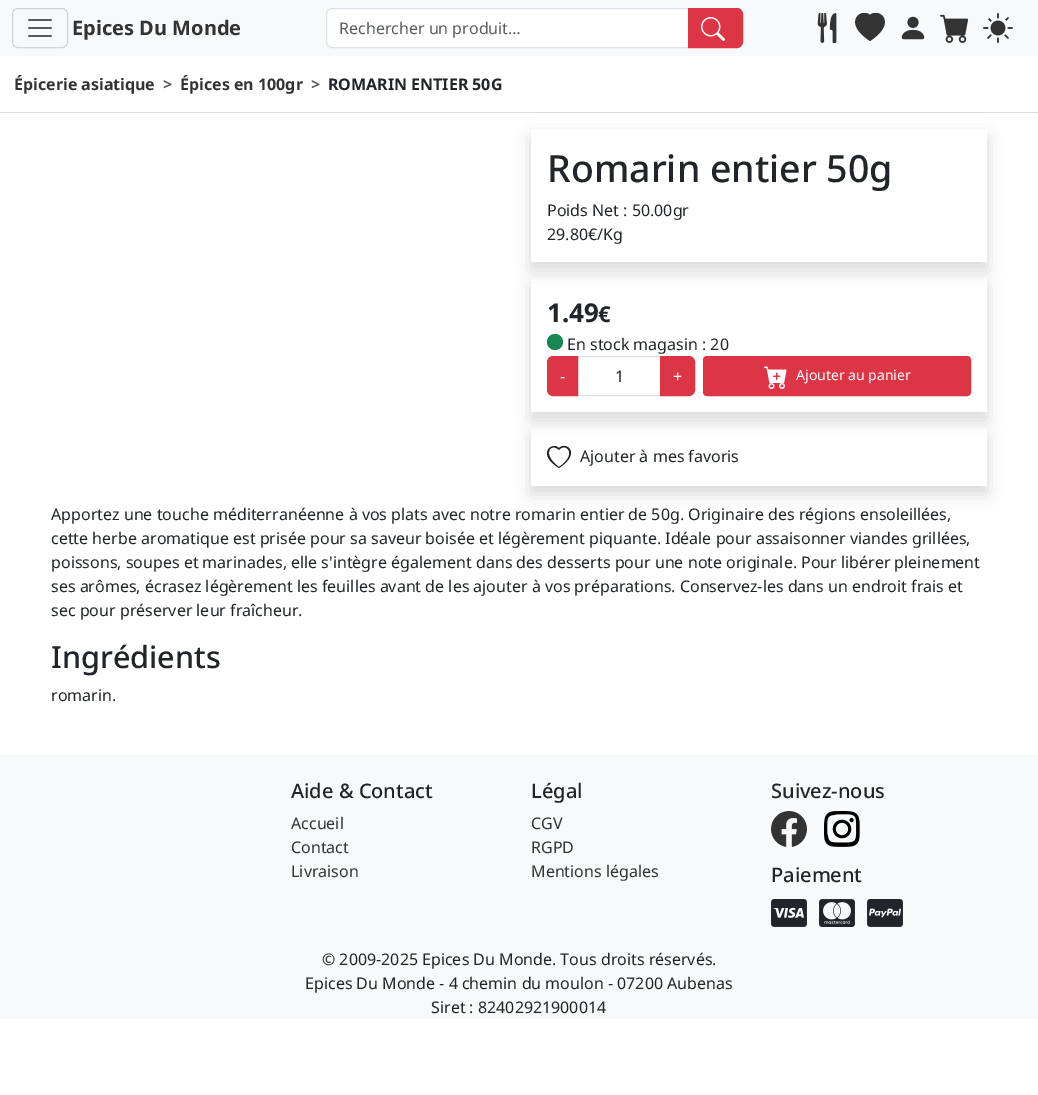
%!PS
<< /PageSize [1038 1095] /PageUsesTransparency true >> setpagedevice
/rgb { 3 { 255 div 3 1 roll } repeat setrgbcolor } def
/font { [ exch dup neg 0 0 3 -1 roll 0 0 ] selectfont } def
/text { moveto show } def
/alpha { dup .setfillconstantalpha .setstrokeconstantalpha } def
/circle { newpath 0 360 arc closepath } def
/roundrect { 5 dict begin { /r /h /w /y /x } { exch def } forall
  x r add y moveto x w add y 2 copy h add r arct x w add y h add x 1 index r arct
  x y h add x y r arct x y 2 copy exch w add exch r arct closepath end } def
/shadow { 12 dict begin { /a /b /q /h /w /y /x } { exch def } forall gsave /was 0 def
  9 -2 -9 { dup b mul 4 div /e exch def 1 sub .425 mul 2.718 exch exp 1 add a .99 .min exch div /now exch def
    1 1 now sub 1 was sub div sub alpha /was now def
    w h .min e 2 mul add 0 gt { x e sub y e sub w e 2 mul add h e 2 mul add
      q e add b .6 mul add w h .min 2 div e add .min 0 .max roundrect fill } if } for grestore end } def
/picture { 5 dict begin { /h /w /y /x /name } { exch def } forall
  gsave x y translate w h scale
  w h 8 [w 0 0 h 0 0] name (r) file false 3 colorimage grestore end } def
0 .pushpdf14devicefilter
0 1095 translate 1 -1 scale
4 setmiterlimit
255 255 255 rgb
0 0 1038 1095 rectfill
248 249 250 rgb
0 0 1038 56 rectfill
211 212 213 rgb
12.5 8.5 55 39 5.5 roundrect stroke
(img_01.rgb) 28 19 24 18 picture
255 255 255 rgb
332 8.5 moveto 356.5 0 rlineto 0 39 rlineto -356.5 0 rlineto -3 0 -5.5 -2.5 -5.5 -5.5 rcurveto 0 -28 rlineto 0 -3 2.5 -5.5 5.5 -5.5 rcurveto closepath gsave fill grestore
222 226 230 rgb
stroke
220 53 69 rgb
688.5 8.5 moveto 48.5 0 rlineto 3 0 5.5 2.5 5.5 5.5 rcurveto 0 28 rlineto 0 3 -2.5 5.5 -5.5 5.5 rcurveto -48.5 0 rlineto closepath gsave fill grestore
stroke
(img_02.rgb) 701 17 24 24 picture
(img_03.rgb) 817 13 20 30 picture
gsave
855 13 30 30 rectclip
51 51 51 rgb
870 15 moveto 8 -8 29 7 0 26 rcurveto -29 -19 -8 -34 0 -26 rcurveto eofill
grestore
(img_04.rgb) 901 16 24 24 picture
(img_05.rgb) 940 14 29 29 picture
(img_06.rgb) 983 13 30 30 picture
221 221 221 rgb
0 112 1038 1 rectfill
gsave
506 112 moveto 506 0 rlineto 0 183 rlineto -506 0 rlineto closepath 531 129 moveto 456 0 rlineto 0 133 rlineto -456 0 rlineto closepath eoclip newpath
0 0 0 rgb
531 137 456 133 0 8 0.15 shadow
grestore
gsave
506 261 moveto 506 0 rlineto 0 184 rlineto -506 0 rlineto closepath 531 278 moveto 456 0 rlineto 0 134 rlineto -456 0 rlineto closepath eoclip newpath
0 0 0 rgb
531 286 456 134 0 8 0.15 shadow
grestore
25 135 84 rgb
555 342 8 circle fill
222 226 230 rgb
577.5 356.5 83 39 rectstroke
220 53 69 rgb
553 356.5 moveto 24.5 0 rlineto 0 39 rlineto -24.5 0 rlineto -3 0 -5.5 -2.5 -5.5 -5.5 rcurveto 0 -28 rlineto 0 -3 2.5 -5.5 5.5 -5.5 rcurveto closepath gsave fill grestore
stroke
660.5 356.5 moveto 28.5 0 rlineto 3 0 5.5 2.5 5.5 5.5 rcurveto 0 28 rlineto 0 3 -2.5 5.5 -5.5 5.5 rcurveto -28.5 0 rlineto closepath gsave fill grestore
stroke
703.5 356.5 267 39 3.5 roundrect gsave fill grestore
stroke
(img_07.rgb) 764 366 23 23 picture
gsave
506 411 moveto 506 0 rlineto 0 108 rlineto -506 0 rlineto closepath 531 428 moveto 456 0 rlineto 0 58 rlineto -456 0 rlineto closepath eoclip newpath
0 0 0 rgb
531 436 456 58 0 8 0.15 shadow
grestore
33 37 41 rgb
559 450 moveto -8 -8 -18 4 0 17 rcurveto 19 -13 7 -24 1 -18 rcurveto closepath 559 468 moveto -23 -14 -7 -27 0 -20 rcurveto 7 -7 23 5 0 20 rcurveto fill
248 249 250 rgb
0 755 1038 264 rectfill
(img_08.rgb) 771 811 36 36 picture
(img_09.rgb) 824 811 36 36 picture
(img_10.rgb) 771 899 36 28 picture
(img_11.rgb) 819 899 36 28 picture
(img_12.rgb) 867 899 36 28 picture
/NotoSans-Bold 20 font
51 51 51 rgb
(Epices Du Monde) 72 35 text
/NotoSans-Regular 16 font
89 92 95 rgb
(Rechercher un produit…) 339 34 text
/NotoSans-Bold 16 font
51 51 51 rgb
(Épicerie asiatique) 14 90 text
89 92 95 rgb
(>) 163 90 text
51 51 51 rgb
(Épices en 100gr) 180 90 text
89 92 95 rgb
(>) 311 90 text
33 37 41 rgb
(ROMARIN ENTIER 50G) 328 90 text
/NotoSans-Medium 37.5 font
(Romarin entier 50g) 547 182 text
/NotoSans-Regular 16 font
(Poids Net : 50.00gr) 547 216 text
(29.80€/Kg) 547 240 text
/NotoSans-Bold 26 font
(1.49) 547 322 text
/NotoSans-Bold 22 font
(€) 598 322 text
/NotoSans-Regular 16 font
(En stock magasin : 20) 567 350 text
255 255 255 rgb
(-) 560 382 text
33 37 41 rgb
(1) 615 382 text
255 255 255 rgb
(+) 673 382 text
/NotoSans-Regular 14 font
(Ajouter au panier) 796 380 text
/NotoSans-Regular 16 font
33 37 41 rgb
(Ajouter à mes favoris) 580 462 text
(Apportez une touche méditerranéenne à vos plats avec notre romarin entier de 50g. Originaire des régions ensoleillées,) 51 520 text
(cette herbe aromatique est prisée pour sa saveur boisée et légèrement piquante. Idéale pour assaisonner viandes grillées,) 51 544 text
(poissons, soupes et marinades, elle s'intègre également dans des desserts pour une note originale. Pour libérer pleinement) 51 568 text
(ses arômes, écrasez légèrement les feuilles avant de les ajouter à vos préparations. Conservez-les dans un endroit frais et) 51 592 text
(sec pour préserver leur fraîcheur.) 51 616 text
/NotoSans-Medium 30.5 font
(Ingrédients) 51 668 text
/NotoSans-Regular 16 font
(romarin.) 51 701 text
/NotoSans-Medium 20 font
(Aide & Contact) 291 798 text
/NotoSans-Regular 16 font
51 51 51 rgb
(Accueil) 291 829 text
(Contact) 291 853 text
(Livraison) 291 877 text
/NotoSans-Medium 20 font
33 37 41 rgb
(Légal) 531 798 text
/NotoSans-Regular 16 font
51 51 51 rgb
(CGV) 531 829 text
(RGPD) 531 853 text
(Mentions légales) 531 877 text
/NotoSans-Medium 20 font
33 37 41 rgb
(Suivez-nous) 771 798 text
(Paiement) 771 882 text
/NotoSans-Regular 16 font
(© 2009-2025 Epices Du Monde. Tous droits réservés.) 322 965 text
(Epices Du Monde - 4 chemin du moulon - 07200 Aubenas) 305 989 text
(Siret : 82402921900014) 431 1013 text
.poppdf14devicefilter showpage
